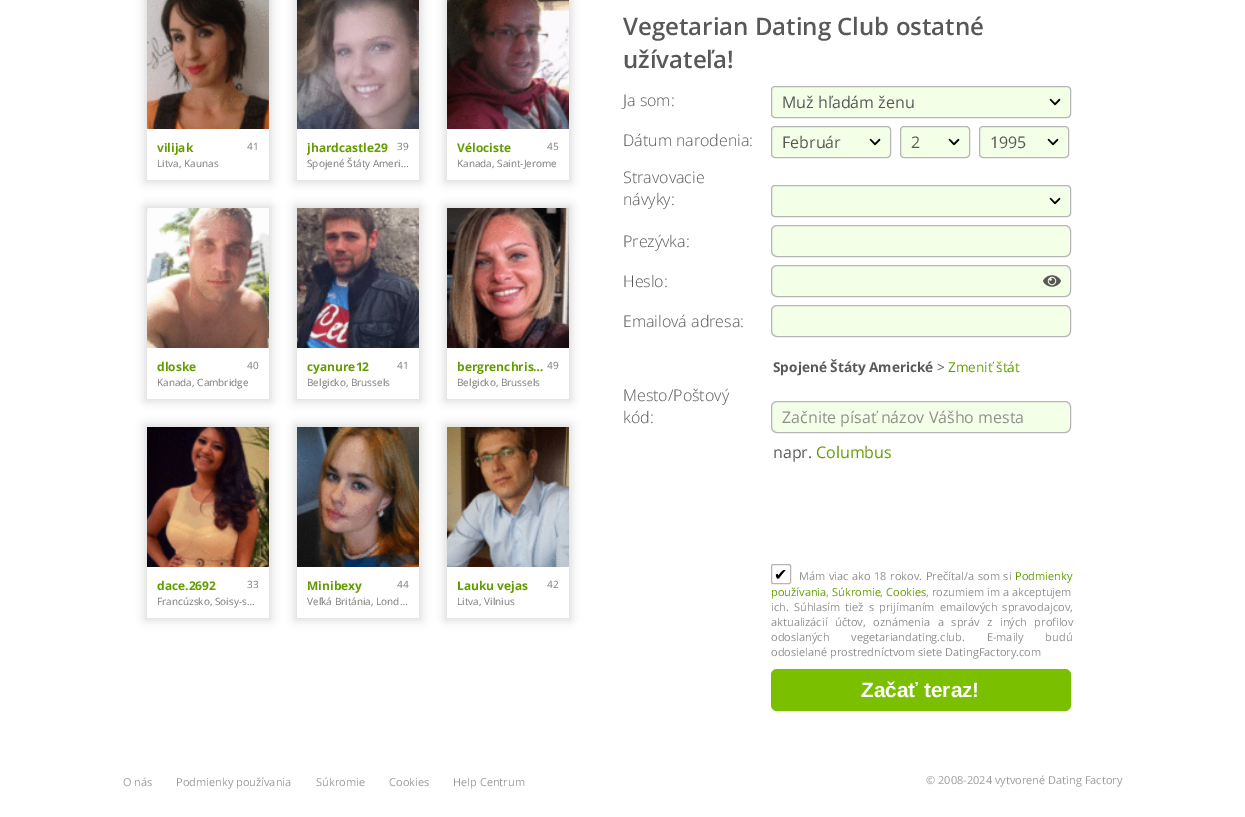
%!PS
<< /PageSize [1245 817] /PageUsesTransparency true >> setpagedevice
/rgb { 3 { 255 div 3 1 roll } repeat setrgbcolor } def
/font { [ exch dup neg 0 0 3 -1 roll 0 0 ] selectfont } def
/text { moveto show } def
/alpha { dup .setfillconstantalpha .setstrokeconstantalpha } def
/roundrect { 5 dict begin { /r /h /w /y /x } { exch def } forall
  x r add y moveto x w add y 2 copy h add r arct x w add y h add x 1 index r arct
  x y h add x y r arct x y 2 copy exch w add exch r arct closepath end } def
/shadow { 12 dict begin { /a /b /q /h /w /y /x } { exch def } forall gsave /was 0 def
  9 -2 -9 { dup b mul 4 div /e exch def 1 sub .425 mul 2.718 exch exp 1 add a .99 .min exch div /now exch def
    1 1 now sub 1 was sub div sub alpha /was now def
    w h .min e 2 mul add 0 gt { x e sub y e sub w e 2 mul add h e 2 mul add
      q e add b .6 mul add w h .min 2 div e add .min 0 .max roundrect fill } if } for grestore end } def
/picture { 5 dict begin { /h /w /y /x /name } { exch def } forall
  gsave x y translate w h scale
  w h 8 [w 0 0 h 0 0] name (r) file false 3 colorimage grestore end } def
0 .pushpdf14devicefilter
0 817 translate 1 -1 scale
4 setmiterlimit
255 255 255 rgb
0 0 1245 817 rectfill
gsave
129 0 moveto 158 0 rlineto 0 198 rlineto -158 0 rlineto closepath 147 -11 moveto 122 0 rlineto 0 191 rlineto -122 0 rlineto closepath eoclip newpath
215 215 215 rgb
145 -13 126 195 0 5 1 shadow
grestore
(img_01.rgb) 147 0 122 129 picture
gsave
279 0 moveto 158 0 rlineto 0 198 rlineto -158 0 rlineto closepath 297 -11 moveto 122 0 rlineto 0 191 rlineto -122 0 rlineto closepath eoclip newpath
215 215 215 rgb
295 -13 126 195 0 5 1 shadow
grestore
(img_02.rgb) 297 0 122 129 picture
gsave
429 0 moveto 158 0 rlineto 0 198 rlineto -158 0 rlineto closepath 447 -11 moveto 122 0 rlineto 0 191 rlineto -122 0 rlineto closepath eoclip newpath
215 215 215 rgb
445 -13 126 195 0 5 1 shadow
grestore
(img_03.rgb) 447 0 122 129 picture
gsave
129 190 moveto 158 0 rlineto 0 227 rlineto -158 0 rlineto closepath 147 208 moveto 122 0 rlineto 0 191 rlineto -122 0 rlineto closepath eoclip newpath
215 215 215 rgb
145 206 126 195 0 5 1 shadow
grestore
(img_04.rgb) 147 208 122 140 picture
gsave
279 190 moveto 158 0 rlineto 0 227 rlineto -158 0 rlineto closepath 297 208 moveto 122 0 rlineto 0 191 rlineto -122 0 rlineto closepath eoclip newpath
215 215 215 rgb
295 206 126 195 0 5 1 shadow
grestore
(img_05.rgb) 297 208 122 140 picture
gsave
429 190 moveto 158 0 rlineto 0 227 rlineto -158 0 rlineto closepath 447 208 moveto 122 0 rlineto 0 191 rlineto -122 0 rlineto closepath eoclip newpath
215 215 215 rgb
445 206 126 195 0 5 1 shadow
grestore
(img_06.rgb) 447 208 122 140 picture
gsave
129 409 moveto 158 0 rlineto 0 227 rlineto -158 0 rlineto closepath 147 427 moveto 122 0 rlineto 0 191 rlineto -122 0 rlineto closepath eoclip newpath
215 215 215 rgb
145 425 126 195 0 5 1 shadow
grestore
(img_07.rgb) 147 427 122 140 picture
gsave
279 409 moveto 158 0 rlineto 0 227 rlineto -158 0 rlineto closepath 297 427 moveto 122 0 rlineto 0 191 rlineto -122 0 rlineto closepath eoclip newpath
215 215 215 rgb
295 425 126 195 0 5 1 shadow
grestore
(img_08.rgb) 297 427 122 140 picture
gsave
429 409 moveto 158 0 rlineto 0 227 rlineto -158 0 rlineto closepath 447 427 moveto 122 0 rlineto 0 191 rlineto -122 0 rlineto closepath eoclip newpath
215 215 215 rgb
445 425 126 195 0 5 1 shadow
grestore
(img_09.rgb) 447 427 122 140 picture
243 255 231 rgb
771 86 300 32 4 roundrect fill
(img_10.rgb) 1049 98 12 8 picture
182 182 182 rgb
771.5 86.5 299 31 3.5 roundrect stroke
243 255 231 rgb
771 126 120 32 4 roundrect fill
(img_10.rgb) 869 138 12 8 picture
182 182 182 rgb
771.5 126.5 119 31 3.5 roundrect stroke
243 255 231 rgb
900 126 70 32 4 roundrect fill
(img_10.rgb) 948 138 12 8 picture
182 182 182 rgb
900.5 126.5 69 31 3.5 roundrect stroke
243 255 231 rgb
979 126 90 32 4 roundrect fill
(img_10.rgb) 1047 138 12 8 picture
182 182 182 rgb
979.5 126.5 89 31 3.5 roundrect stroke
243 255 231 rgb
771 185 300 32 4 roundrect fill
(img_10.rgb) 1049 197 12 8 picture
182 182 182 rgb
771.5 185.5 299 31 3.5 roundrect stroke
243 255 231 rgb
771.5 225.5 299 31 5.5 roundrect gsave fill grestore
182 182 182 rgb
stroke
243 255 231 rgb
771.5 265.5 299 31 5.5 roundrect gsave fill grestore
182 182 182 rgb
stroke
(img_11.rgb) 1043 275 18 12 picture
243 255 231 rgb
771.5 305.5 299 31 5.5 roundrect gsave fill grestore
182 182 182 rgb
stroke
243 255 231 rgb
771.5 401.5 299 31 5.5 roundrect gsave fill grestore
182 182 182 rgb
stroke
771.5 564.5 19 19 1.5 roundrect stroke
122 192 0 rgb
771.5 669.5 299 41 5.5 roundrect gsave fill grestore
stroke
/OpenSans-Bold 12 font
99 156 0 rgb
(vilijak) 157 152 text
/OpenSans-Regular 10 font
121 121 121 rgb
(41) 247 150 text
(Litva, Kaunas) 157 167 text
gsave
307 139 90 17 rectclip
/OpenSans-Bold 12 font
99 156 0 rgb
(jhardcastle29) 307 152 text
grestore
(39) 397 150 text
(Spojené Štáty Ameri…) 307 167 text
/OpenSans-Bold 12 font
99 156 0 rgb
(Vélociste) 457 152 text
/OpenSans-Regular 10 font
121 121 121 rgb
(45) 547 150 text
(Kanada, Saint-Jerome) 457 167 text
/OpenSans-Bold 12 font
99 156 0 rgb
(dloske) 157 371 text
/OpenSans-Regular 10 font
121 121 121 rgb
(40) 247 369 text
(Kanada, Cambridge) 157 386 text
/OpenSans-Bold 12 font
99 156 0 rgb
(cyanure12) 307 371 text
/OpenSans-Regular 10 font
121 121 121 rgb
(41) 397 369 text
(Belgicko, Brussels) 307 386 text
/OpenSans-Bold 12 font
99 156 0 rgb
(bergrenchris…) 457 371 text
/OpenSans-Regular 10 font
121 121 121 rgb
(49) 547 369 text
(Belgicko, Brussels) 457 386 text
/OpenSans-Bold 12 font
99 156 0 rgb
(dace.2692) 157 590 text
/OpenSans-Regular 10 font
121 121 121 rgb
(33) 247 588 text
(Francúzsko, Soisy-s…) 157 605 text
/OpenSans-Bold 12 font
99 156 0 rgb
(Minibexy) 307 590 text
/OpenSans-Regular 10 font
121 121 121 rgb
(44) 397 588 text
(Veľká Británia, Lond…) 307 605 text
/OpenSans-Bold 12 font
99 156 0 rgb
(Lauku vejas) 457 590 text
/OpenSans-Regular 10 font
121 121 121 rgb
(42) 547 588 text
(Litva, Vilnius) 457 605 text
/OpenSans-SemiBold 24 font
88 88 88 rgb
(Vegetarian Dating Club ostatné) 623 35 text
(užívateľa!) 623 68 text
/OpenSans-Light 16 font
(Ja som:) 623 106 text
/OpenSans-Regular 16 font
(Muž hľadám ženu) 782 108 text
/OpenSans-Light 16 font
(Dátum narodenia:) 623 146 text
/OpenSans-Regular 16 font
(Február) 782 148 text
(2) 911 148 text
(1995) 990 148 text
/OpenSans-Light 16 font
(Stravovacie) 623 183 text
(návyky:) 623 205 text
(Prezývka:) 623 247 text
(Heslo:) 623 287 text
(Emailová adresa:) 623 327 text
/OpenSans-Bold 13.6 font
(Spojené Štáty Americké) 773 372 text
/OpenSans-Regular 13.6 font
(>) 937 372 text
99 156 0 rgb
(Zmeniť štát) 948 372 text
/OpenSans-Light 16 font
88 88 88 rgb
(Mesto/Poštový) 623 401 text
(kód:) 623 423 text
/OpenSans-Regular 16 font
144 143 143 rgb
(Začnite písať názov Vášho mesta) 782 423 text
88 88 88 rgb
(napr.) 773 458 text
99 156 0 rgb
(Columbus) 816 458 text
/DejaVuSans-Regular 16 font
0 0 0 rgb
(✔) 774 580 text
/OpenSans-Regular 11 font
144 143 143 rgb
799 580 moveto 0.75 0 32 (Mám viac ako 18 rokov. Prečítal/a som si) widthshow
99 156 0 rgb
(Podmienky) 1015 580 text
(používania) 771 596 text
144 143 143 rgb
(,) 826 596 text
99 156 0 rgb
(Súkromie) 832 596 text
144 143 143 rgb
(,) 880 596 text
99 156 0 rgb
(Cookies) 886 596 text
144 143 143 rgb
(, rozumiem im a akceptujem) 926 596 text
771 611 moveto 2.25 0 32 (ich. Súhlasím tiež s prijímaním emailových spravodajcov,) widthshow
771 626 moveto 4.75 0 32 (aktualizácií účtov, oznámenia a správ z iných profilov) widthshow
771 641 moveto 19 0 32 (odoslaných vegetariandating.club. E-maily budú) widthshow
(odosielané prostredníctvom siete DatingFactory.com) 771 656 text
/LiberationSans-Bold 20.75 font
255 255 255 rgb
(Začať teraz!) 861 697 text
/OpenSans-Regular 11 font
156 156 156 rgb
(O nás) 123 786 text
(Podmienky používania) 176 786 text
(Súkromie) 316 786 text
(Cookies) 389 786 text
(Help Centrum) 453 786 text
(© 2008-2024 vytvorené Dating Factory) 926 784 text
.poppdf14devicefilter showpage
